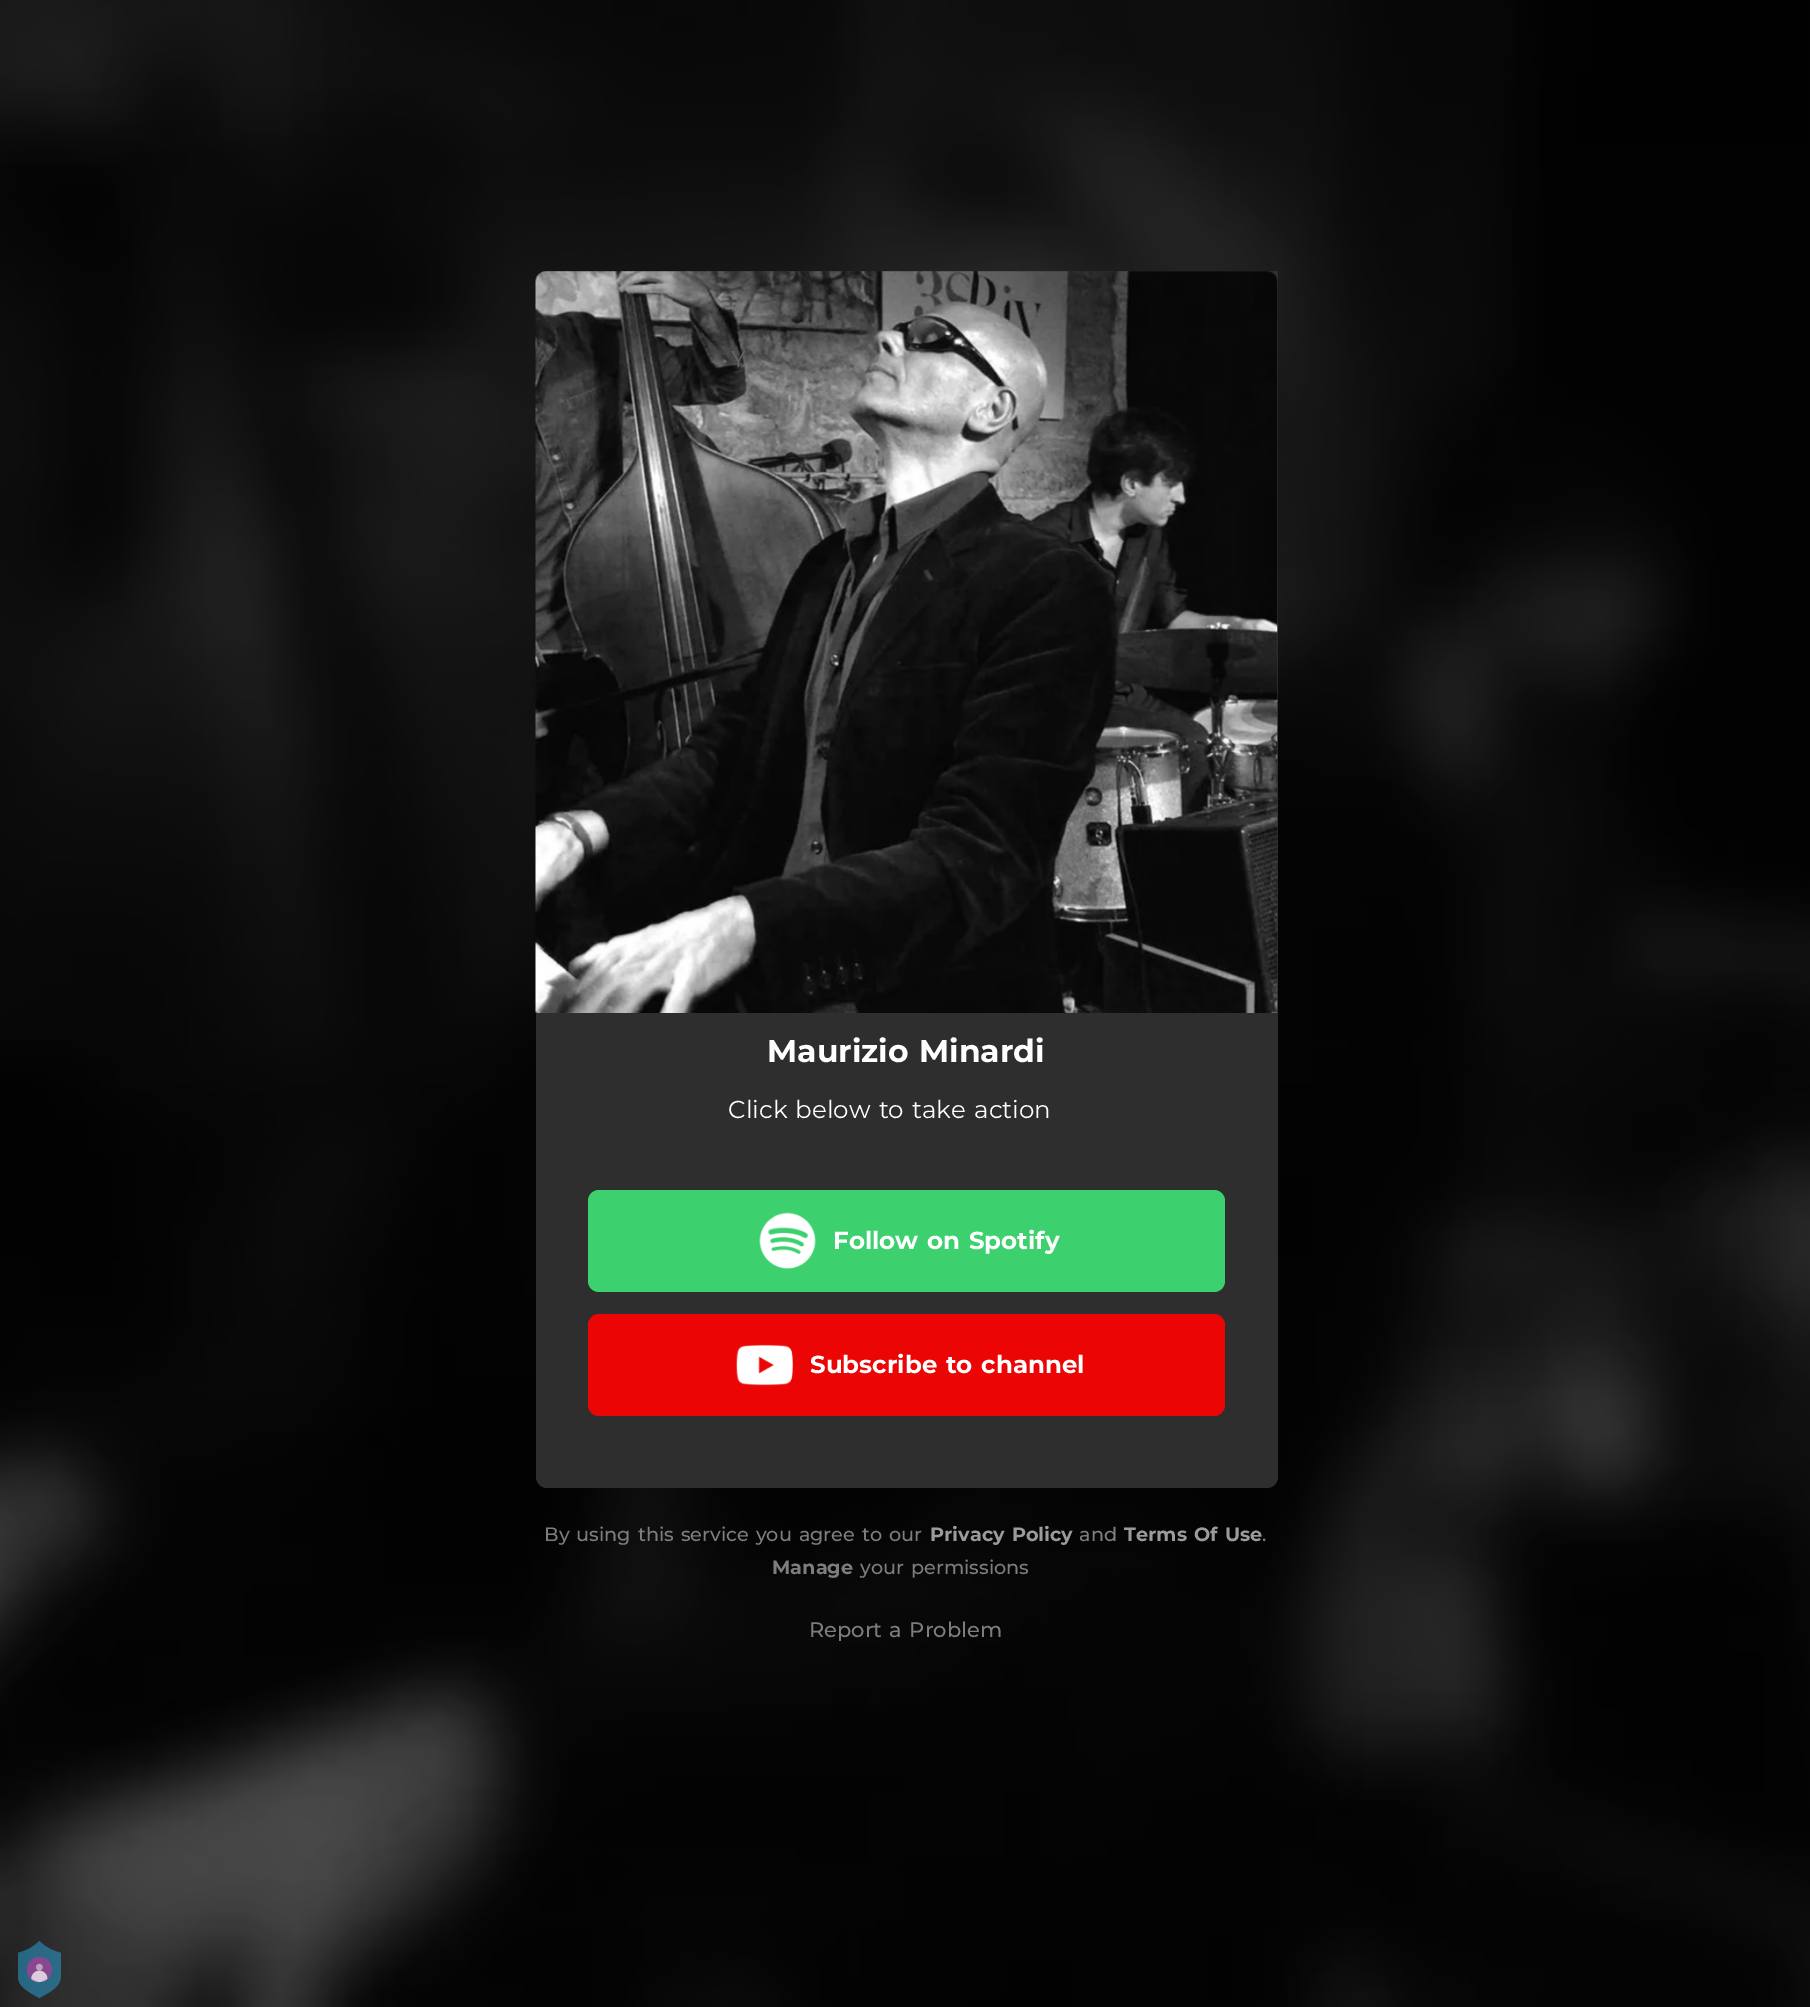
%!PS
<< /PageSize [1810 2007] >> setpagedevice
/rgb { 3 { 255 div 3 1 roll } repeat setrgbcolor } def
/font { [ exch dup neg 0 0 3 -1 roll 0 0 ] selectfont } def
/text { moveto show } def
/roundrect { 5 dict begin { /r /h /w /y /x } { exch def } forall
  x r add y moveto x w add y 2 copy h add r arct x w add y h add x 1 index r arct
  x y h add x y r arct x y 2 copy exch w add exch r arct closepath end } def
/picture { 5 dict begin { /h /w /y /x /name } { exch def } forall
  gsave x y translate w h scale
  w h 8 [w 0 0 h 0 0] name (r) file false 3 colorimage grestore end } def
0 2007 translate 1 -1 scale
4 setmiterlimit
255 255 255 rgb
0 0 1810 2007 rectfill
(img_01.rgb) 0 0 1810 2007 picture
47 47 47 rgb
547 271 moveto 731 0 rlineto 0 742 rlineto -731 0 rlineto -6 0 -11 -5 -11 -11 rcurveto 0 -720 rlineto 0 -6 5 -11 11 -11 rcurveto closepath fill
(img_02.rgb) 535 271 743 743 picture
46 46 46 rgb
536 1013 moveto 742 0 rlineto 0 464 rlineto 0 6 -5 11 -11 11 rcurveto -720 0 rlineto -6 0 -11 -5 -11 -11 rcurveto closepath fill
60 209 110 rgb
588 1190 637 102 11 roundrect fill
(img_03.rgb) 759 1212 57 57 picture
235 5 5 rgb
588 1314 637 102 11 roundrect fill
(img_04.rgb) 736 1344 57 42 picture
(img_05.rgb) 18 1941 43 58 picture
/Montserrat-Regular 23 font
102 102 102 rgb
731 367 moveto 1.75 0 32 (Y) widthshow
/Montserrat-Bold 31.5 font
255 255 255 rgb
767 1062 moveto 1.75 0 32 (Maurizio Minardi) widthshow
/Montserrat-Regular 24.5 font
728 1118 moveto 1.75 0 32 (Click below to take action) widthshow
/Montserrat-Bold 24.5 font
833 1249 moveto 1.75 0 32 (Follow on Spotify) widthshow
810 1373 moveto 1.75 0 32 (Subscribe to channel) widthshow
/Montserrat-Medium 19.25 font
125 125 125 rgb
544 1541 moveto 1.75 0 32 (By using this service you agree to our) widthshow
/Montserrat-Bold 19.25 font
155 155 155 rgb
930 1541 moveto 1.75 0 32 (Privacy Policy) widthshow
/Montserrat-Medium 19.25 font
125 125 125 rgb
(and) 1079 1541 text
/Montserrat-Bold 19.25 font
155 155 155 rgb
1124 1541 moveto 1.75 0 32 (Terms Of Use) widthshow
/Montserrat-Medium 19.25 font
125 125 125 rgb
(.) 1262 1541 text
/Montserrat-Bold 19.25 font
(Manage) 772 1574 text
/Montserrat-Medium 19.25 font
860 1574 moveto 1.75 0 32 (your permissions) widthshow
/Montserrat-Medium 21 font
809 1637 moveto 1.75 0 32 (Report a Problem) widthshow
showpage
